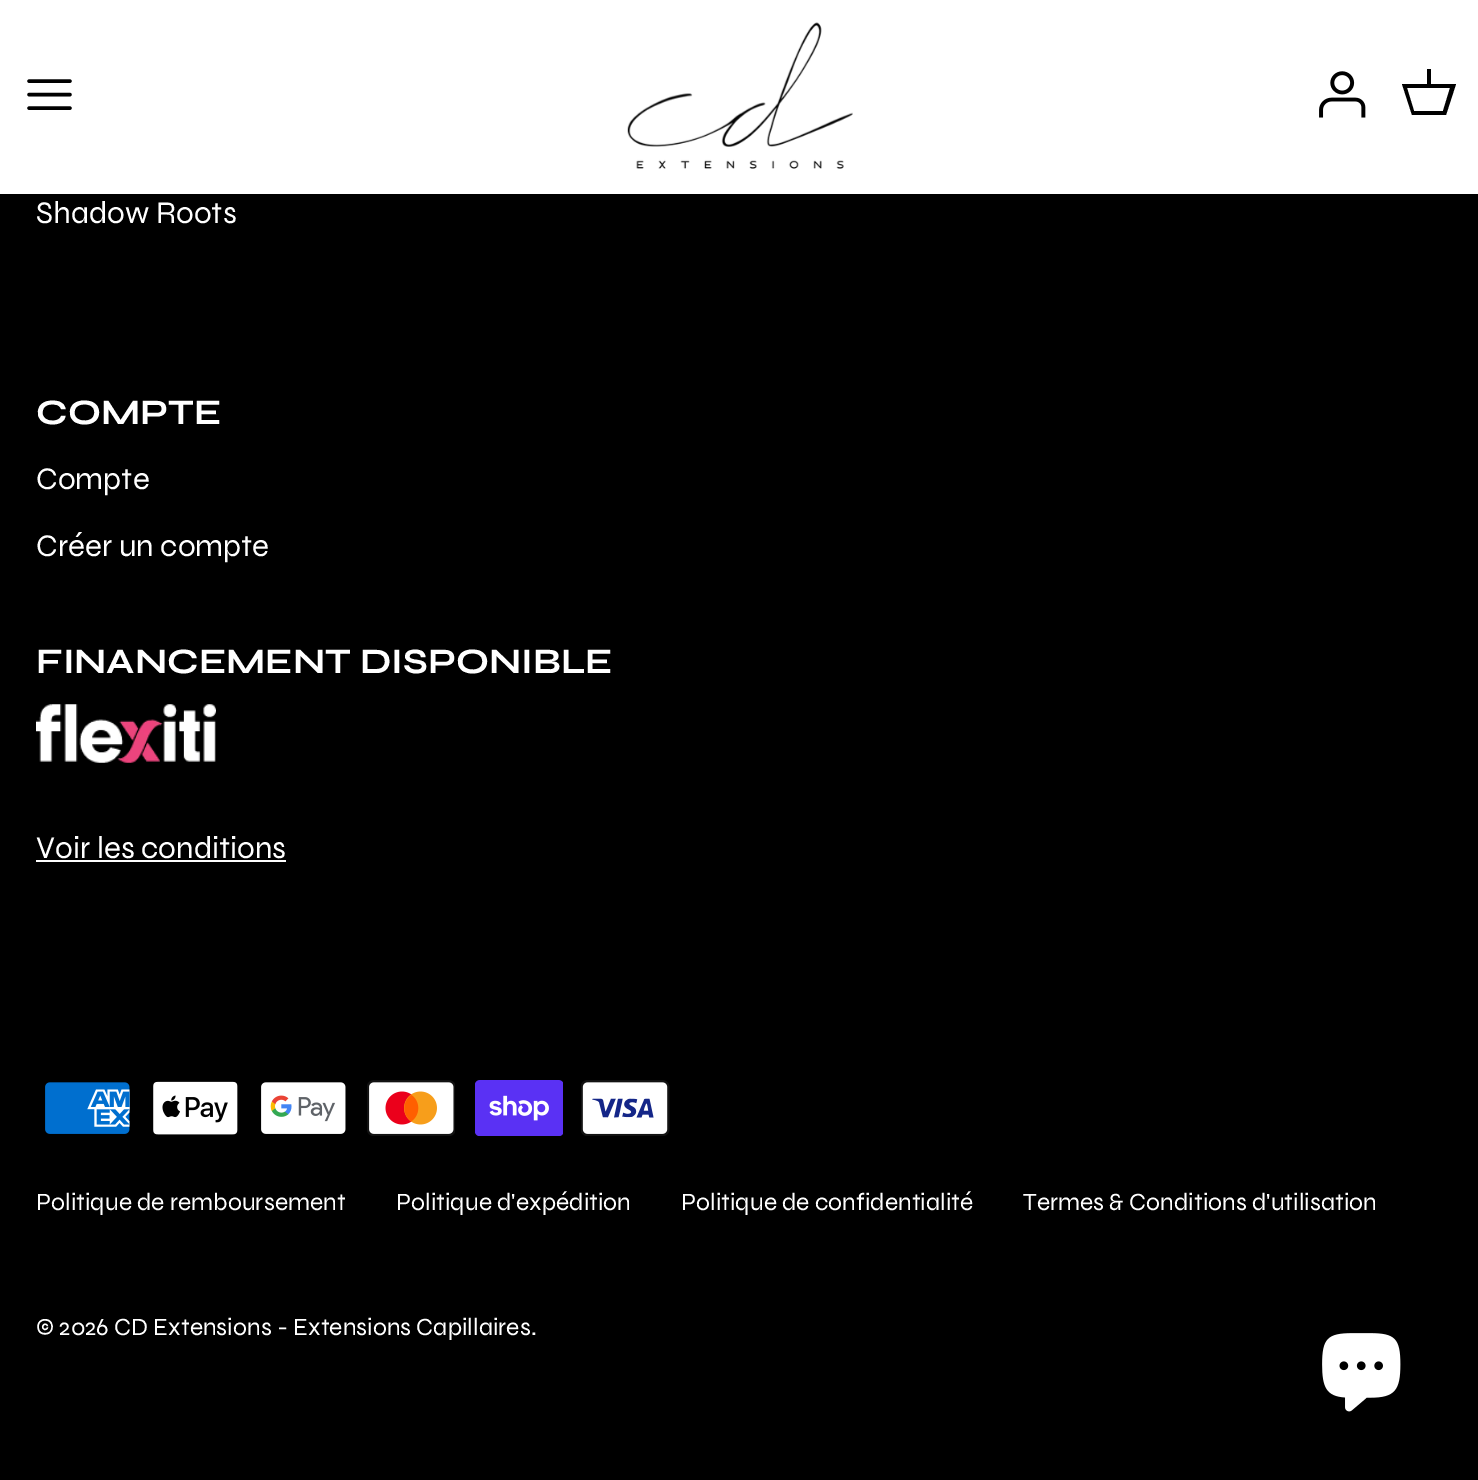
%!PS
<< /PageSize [1478 1480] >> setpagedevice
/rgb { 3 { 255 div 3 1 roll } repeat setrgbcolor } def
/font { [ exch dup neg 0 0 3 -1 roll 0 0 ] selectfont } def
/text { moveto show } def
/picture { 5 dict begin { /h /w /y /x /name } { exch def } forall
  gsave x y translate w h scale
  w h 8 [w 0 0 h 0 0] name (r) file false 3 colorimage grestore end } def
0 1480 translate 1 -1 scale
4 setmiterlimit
0 0 0 rgb
0 0 1478 1480 rectfill
255 255 255 rgb
0 0 1478 194 rectfill
0 0 0 rgb
3.4 setlinewidth
1 setlinecap
1 setlinejoin
29 94.5 moveto 41 0 rlineto 29 81 moveto 41 0 rlineto 29 108 moveto 41 0 rlineto stroke
(img_01.rgb) 627 22 226 147 picture
(img_02.rgb) 1319 71 47 47 picture
1427 84 moveto 0 -15 rlineto 4 0 rlineto 0 15 rlineto 25 0 rlineto -10 31 rlineto -34 0 rlineto -10 -31 rlineto closepath 1407 88 moveto 7 23 rlineto 29 0 rlineto 7 -23 rlineto closepath fill
(img_03.rgb) 36 704 180 59 picture
255 255 255 rgb
36 860 250 2 rectfill
(img_04.rgb) 45 1082 85 52 picture
(img_05.rgb) 153 1081 85 54 picture
(img_06.rgb) 261 1082 85 52 picture
(img_07.rgb) 367 1080 88 56 picture
(img_08.rgb) 475 1080 88 56 picture
(img_09.rgb) 581 1080 89 56 picture
(img_10.rgb) 1322 1333 79 79 picture
/Syne-Regular 31.5 font
(Shadow Roots) 36 223 text
/Syne-Bold 35.8 font
(COMPTE) 36 424 text
/Syne-Regular 31.5 font
(Compte) 36 489 text
(Créer un compte) 36 556 text
/Syne-Bold 35.8 font
(FINANCEMENT DISPONIBLE) 36 673 text
/Syne-Regular 31.5 font
(Voir les conditions) 36 858 text
/Syne-Regular 24.75 font
(Politique de remboursement) 36 1210 text
(Politique d'expédition) 396 1210 text
(Politique de confidentialité) 681 1210 text
(Termes & Conditions d'utilisation) 1023 1210 text
(© 2026 CD Extensions - Extensions Capillaires.) 36 1335 text
showpage
